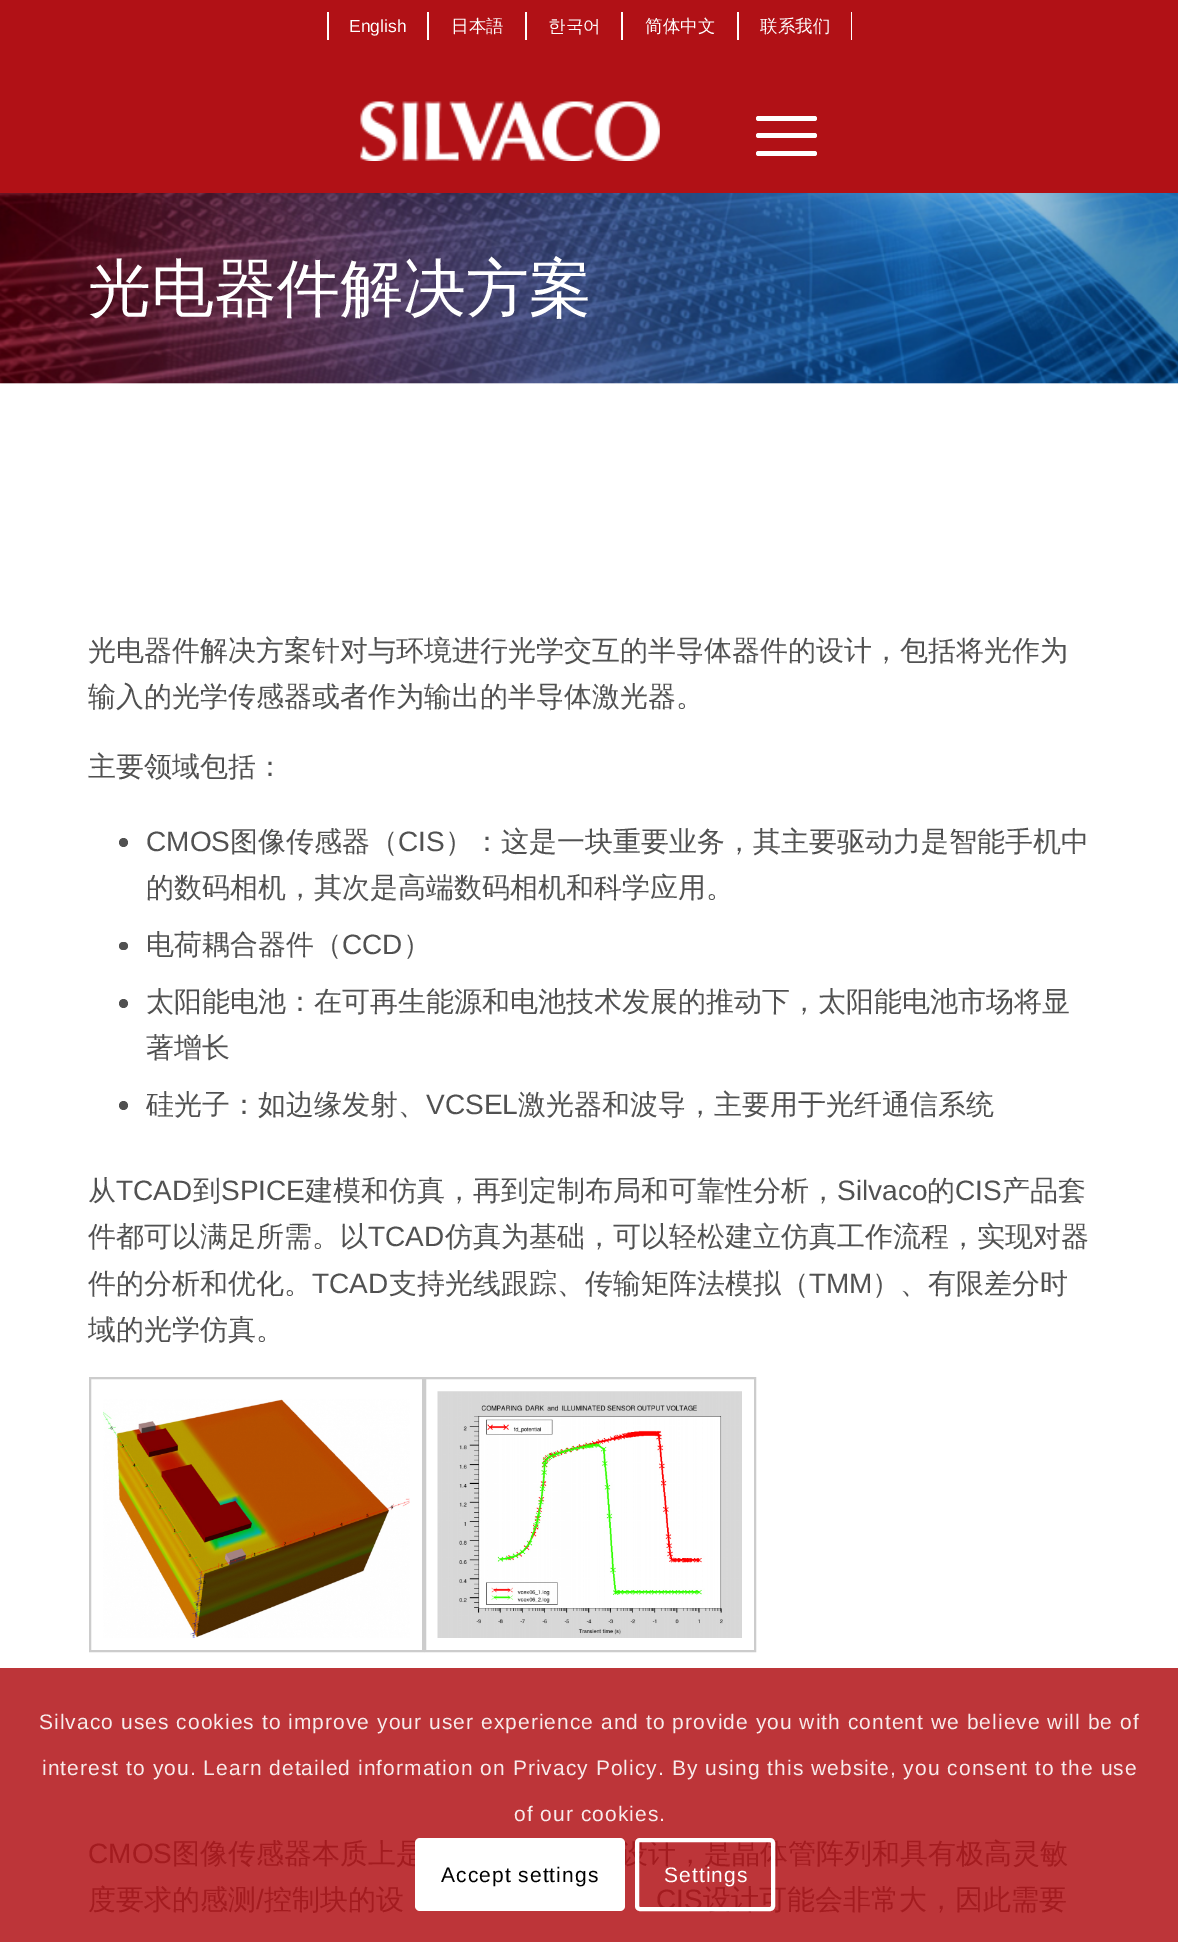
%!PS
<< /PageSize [1178 1942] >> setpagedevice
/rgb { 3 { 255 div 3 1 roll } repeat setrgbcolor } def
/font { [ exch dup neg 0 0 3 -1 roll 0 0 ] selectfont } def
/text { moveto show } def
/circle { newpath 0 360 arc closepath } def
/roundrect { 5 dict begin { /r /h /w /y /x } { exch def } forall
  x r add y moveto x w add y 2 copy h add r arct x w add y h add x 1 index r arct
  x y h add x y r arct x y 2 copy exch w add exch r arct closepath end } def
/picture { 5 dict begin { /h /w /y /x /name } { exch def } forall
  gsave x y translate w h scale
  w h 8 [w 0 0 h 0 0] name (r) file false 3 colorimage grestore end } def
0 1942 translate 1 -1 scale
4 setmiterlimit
255 255 255 rgb
0 0 1178 1942 rectfill
177 17 22 rgb
0 0 1178 193 rectfill
255 255 255 rgb
427 12 2 28 rectfill
327 12 2 28 rectfill
525 12 2 28 rectfill
621 12 2 28 rectfill
737 12 2 28 rectfill
851 12 1 28 rectfill
(img_01.rgb) 360 101 300 60 picture
756 133 61 5 2.5 roundrect fill
756 116 61 5 2.5 roundrect fill
756 151 61 5 2.5 roundrect fill
(img_02.rgb) 0 193 1178 191 picture
189 53 57 rgb
0 1668 1178 274 rectfill
81 81 81 rgb
123.5 842.5 4.5 circle fill
119 942 9 8 4 roundrect fill
123.5 1003.5 4.5 circle fill
123.5 1105.5 4.5 circle fill
204 204 204 rgb
2 setlinewidth
90 1378 333 273 rectstroke
(img_03.rgb) 103 1399 307 239 picture
425 1378 330 273 rectstroke
(img_04.rgb) 437 1391 305 247 picture
/LiberationSans-Regular 17.5 font
255 255 255 rgb
(English) 349 32 text
/WenQuanYiZenHei-Medium 17.5 font
(日本語) 451 32 text
(한국어) 548 32 text
(简体中文) 645 32 text
(联系我们) 760 32 text
/WenQuanYiZenHei-Medium 63 font
(光电器件解决方案) 88 310 text
/WenQuanYiZenHei-Medium 28 font
81 81 81 rgb
(光电器件解决方案针对与环境进行光学交互的半导体器件的设计，包括将光作为) 88 660 text
(输入的光学传感器或者作为输出的半导体激光器。) 88 706 text
(主要领域包括：) 88 776 text
/LiberationSans-Regular 28 font
(CMOS) 146 851 text
/WenQuanYiZenHei-Medium 28 font
(图像传感器（) 230 851 text
/LiberationSans-Regular 28 font
(CIS) 398 851 text
/WenQuanYiZenHei-Medium 28 font
(）：这是一块重要业务，其主要驱动力是智能手机中) 445 851 text
(的数码相机，其次是高端数码相机和科学应用。) 146 897 text
(电荷耦合器件（) 146 954 text
/LiberationSans-Regular 28 font
(CCD) 342 954 text
/WenQuanYiZenHei-Medium 28 font
(）) 403 954 text
(太阳能电池：在可再生能源和电池技术发展的推动下，太阳能电池市场将显) 146 1011 text
(著增长) 146 1057 text
(硅光子：如边缘发射、) 146 1114 text
/LiberationSans-Regular 28 font
(VCSEL) 426 1114 text
/WenQuanYiZenHei-Medium 28 font
(激光器和波导，主要用于光纤通信系统) 518 1114 text
(从) 88 1200 text
/LiberationSans-Regular 28 font
(TCAD) 116 1200 text
/WenQuanYiZenHei-Medium 28 font
(到) 193 1200 text
/LiberationSans-Regular 28 font
(SPICE) 221 1200 text
/WenQuanYiZenHei-Medium 28 font
(建模和仿真，再到定制布局和可靠性分析，) 305 1200 text
/LiberationSans-Regular 28 font
(Silvaco) 837 1200 text
/WenQuanYiZenHei-Medium 28 font
(的) 927 1200 text
/LiberationSans-Regular 28 font
(CIS) 955 1200 text
/WenQuanYiZenHei-Medium 28 font
(产品套) 1002 1200 text
(件都可以满足所需。以) 88 1246 text
/LiberationSans-Regular 28 font
(TCAD) 368 1246 text
/WenQuanYiZenHei-Medium 28 font
(仿真为基础，可以轻松建立仿真工作流程，实现对器) 445 1246 text
(件的分析和优化。) 88 1293 text
/LiberationSans-Regular 28 font
(TCAD) 312 1293 text
/WenQuanYiZenHei-Medium 28 font
(支持光线跟踪、传输矩阵法模拟（) 389 1293 text
/LiberationSans-Regular 28 font
(TMM) 809 1293 text
/WenQuanYiZenHei-Medium 28 font
(）、有限差分时) 872 1293 text
(域的光学仿真。) 88 1339 text
/LiberationSans-Regular 28 font
163 27 31 rgb
(CMOS) 88 1863 text
/WenQuanYiZenHei-Medium 28 font
(图像传感器本质上是) 172 1863 text
(设计，是晶体管阵列和具有极高灵敏) 620 1863 text
(度要求的感测) 88 1909 text
/LiberationSans-Regular 28 font
(/) 256 1909 text
/WenQuanYiZenHei-Medium 28 font
(控制块的设) 264 1909 text
/LiberationSans-Regular 28 font
(CIS) 656 1909 text
/WenQuanYiZenHei-Medium 28 font
(设计可能会非常大，因此需要) 703 1909 text
/LiberationSans-Regular 21 font
248 235 235 rgb
39 1729 moveto 1.05 0 (Silvaco uses cookies to improve your user experience and to provide you with content we believe will be of) ashow
42 1775 moveto 1.05 0 (interest to you. Learn detailed information on Privacy Policy. By using this website, you consent to the use) ashow
514 1821 moveto 1.05 0 (of our cookies.) ashow
255 255 255 rgb
415 1838 210 73 5 roundrect fill
0 0 0 rgb
441 1882 moveto 1.05 0 (Accept settings) ashow
255 255 255 rgb
4 setlinewidth
637 1840 136 69 3 roundrect stroke
664 1882 moveto 1.05 0 (Settings) ashow
showpage
